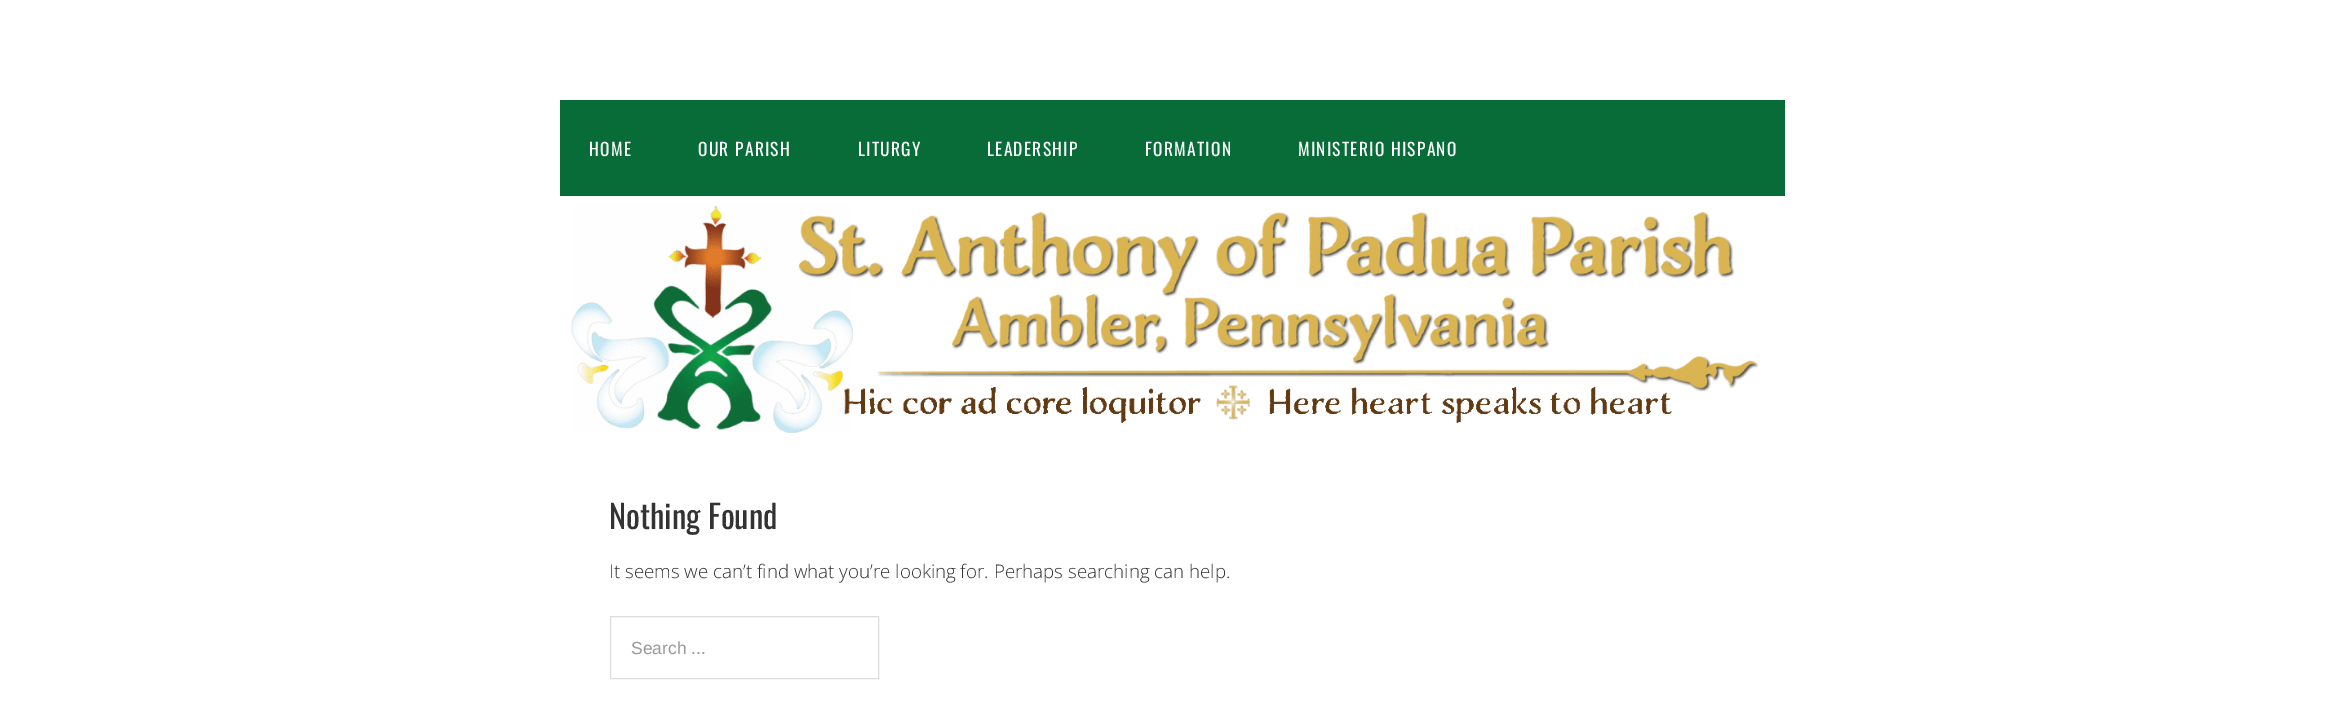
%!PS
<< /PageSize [2343 714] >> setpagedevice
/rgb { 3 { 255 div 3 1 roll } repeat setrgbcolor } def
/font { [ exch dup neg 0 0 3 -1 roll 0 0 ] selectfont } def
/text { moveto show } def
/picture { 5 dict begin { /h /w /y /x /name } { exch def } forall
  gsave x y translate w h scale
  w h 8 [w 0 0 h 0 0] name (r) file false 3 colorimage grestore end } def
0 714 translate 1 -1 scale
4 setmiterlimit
255 255 255 rgb
0 0 2343 714 rectfill
7 108 56 rgb
560 100 1225 96 rectfill
(img_01.rgb) 571 206 1188 227 picture
221 221 221 rgb
610.5 616.5 268 62 rectstroke
/Oswald-Regular 17.5 font
255 255 255 rgb
589 156 moveto 1.25 0 (HOME) ashow
698 156 moveto 1.25 0 (OUR PARISH) ashow
858 156 moveto 1.25 0 (LITURGY) ashow
987 156 moveto 1.25 0 (LEADERSHIP) ashow
1145 156 moveto 1.25 0 (FORMATION) ashow
1298 156 moveto 1.25 0 (MINISTERIO HISPANO) ashow
/Oswald-Regular 32.5 font
51 51 51 rgb
(Nothing Found) 609 529 text
/OpenSans-Light 18.75 font
(It seems we can’t find what you’re looking for. Perhaps searching can help.) 609 578 text
/LiberationSans-Regular 17.5 font
153 153 153 rgb
(Search ...) 631 654 text
showpage
